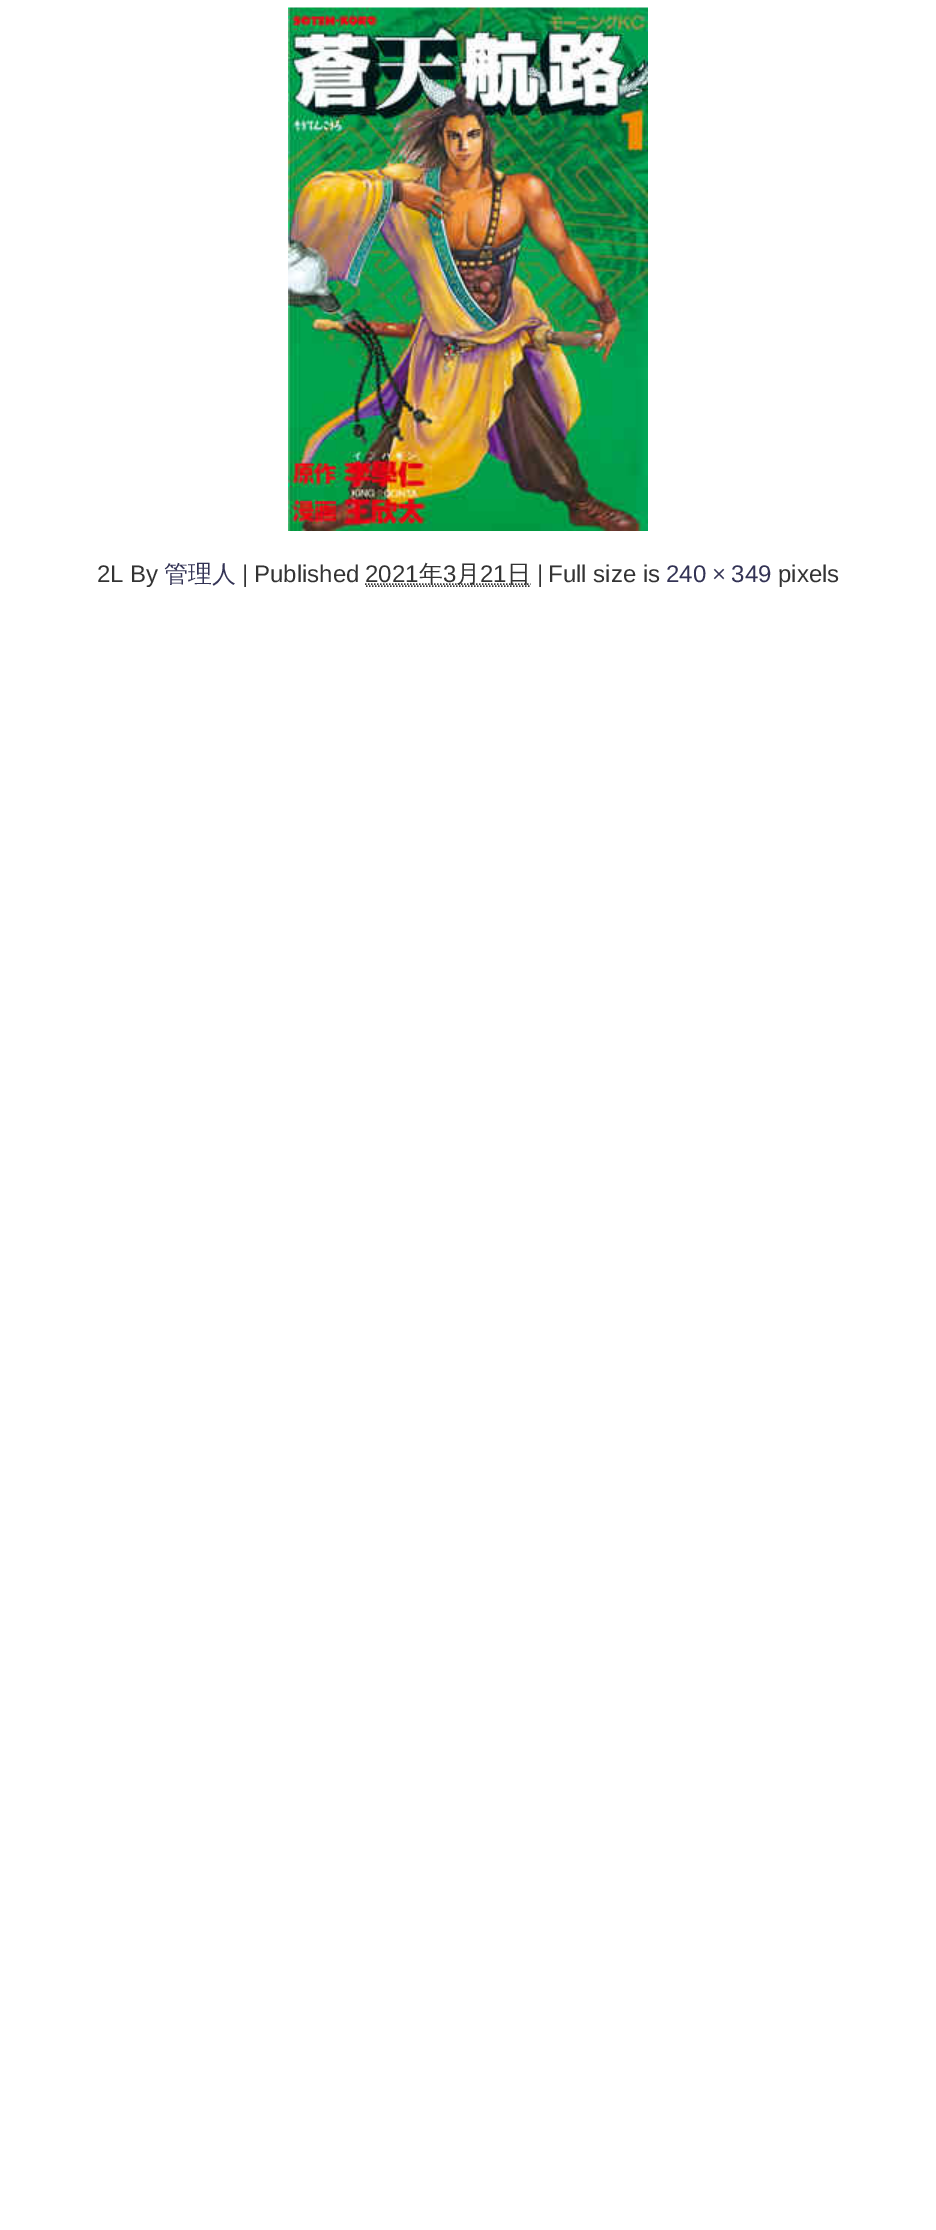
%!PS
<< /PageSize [936 2230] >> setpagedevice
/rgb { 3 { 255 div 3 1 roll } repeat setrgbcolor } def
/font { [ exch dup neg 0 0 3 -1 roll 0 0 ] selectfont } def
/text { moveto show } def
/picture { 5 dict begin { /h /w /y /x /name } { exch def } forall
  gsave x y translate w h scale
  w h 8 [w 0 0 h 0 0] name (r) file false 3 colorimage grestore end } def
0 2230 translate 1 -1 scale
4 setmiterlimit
255 255 255 rgb
0 0 936 2230 rectfill
(img_01.rgb) 288 7 360 524 picture
51 51 51 rgb
1.5 setlinewidth
[1.5 1.5] 0 setdash
366 586 moveto 165 0 rlineto stroke
365 584 moveto 165.5 0 rlineto stroke
/LiberationSans-Regular 24 font
(2L) 97 582 text
(By) 130 582 text
/WenQuanYiZenHei-Medium 24 font
51 51 85 rgb
(管理人) 164 582 text
/LiberationSans-Regular 24 font
51 51 51 rgb
(|) 242 582 text
(Published) 254 582 text
(2021) 365 582 text
/WenQuanYiZenHei-Medium 24 font
(年) 419 582 text
/LiberationSans-Regular 24 font
(3) 443 582 text
/WenQuanYiZenHei-Medium 24 font
(月) 456 582 text
/LiberationSans-Regular 24 font
(21) 480 582 text
/WenQuanYiZenHei-Medium 24 font
(日) 507 582 text
/LiberationSans-Regular 24 font
(|) 537 582 text
(Full size is) 548 582 text
51 51 85 rgb
666 582 moveto -1 0 32 (240 × 349) widthshow
51 51 51 rgb
(pixels) 778 582 text
showpage
